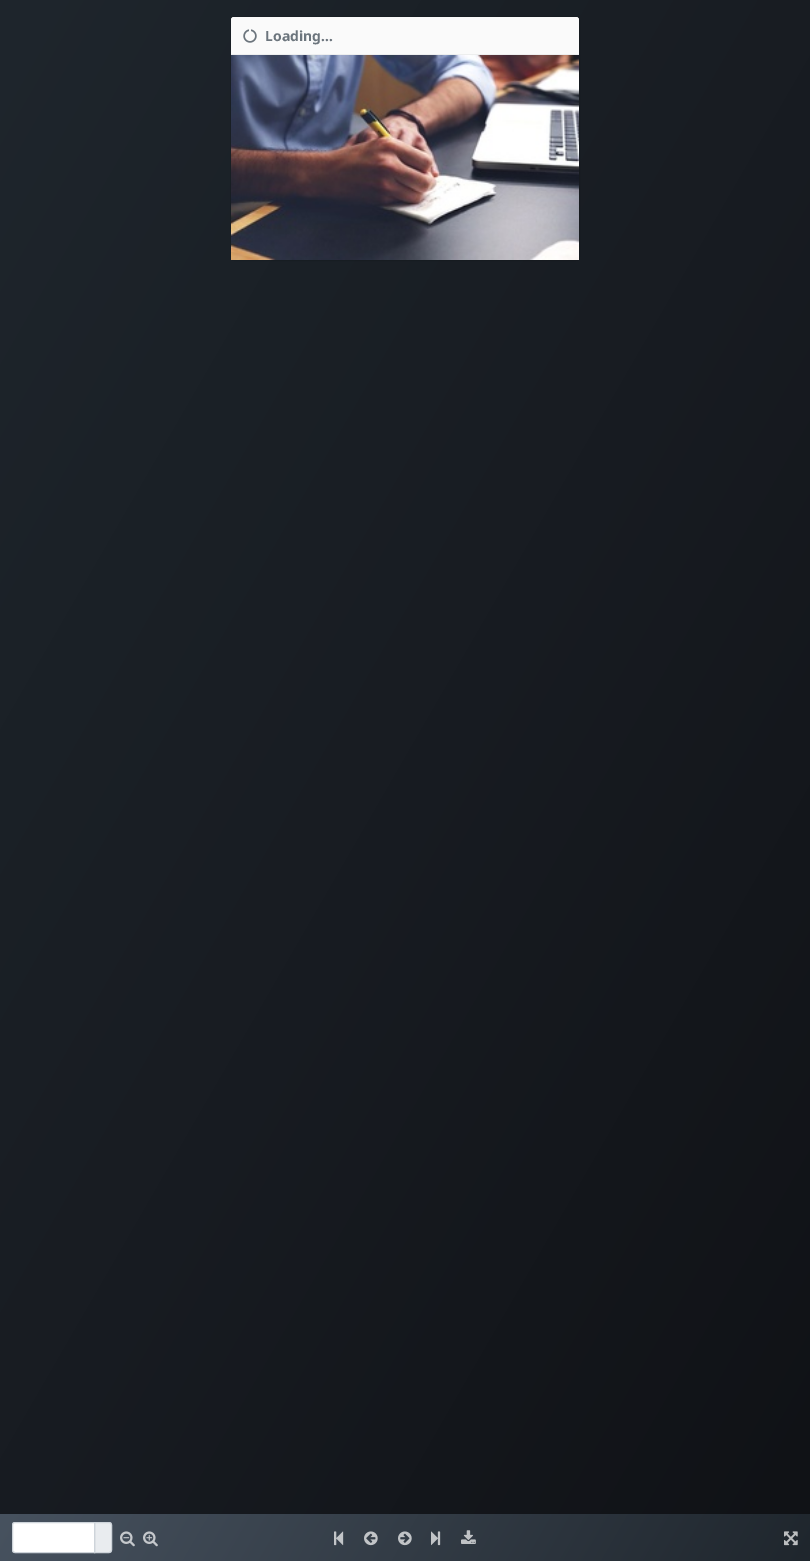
%!PS
<< /PageSize [810 1561] /PageUsesTransparency true >> setpagedevice
/rgb { 3 { 255 div 3 1 roll } repeat setrgbcolor } def
/font { [ exch dup neg 0 0 3 -1 roll 0 0 ] selectfont } def
/text { moveto show } def
/alpha { dup .setfillconstantalpha .setstrokeconstantalpha } def
/roundrect { 5 dict begin { /r /h /w /y /x } { exch def } forall
  x r add y moveto x w add y 2 copy h add r arct x w add y h add x 1 index r arct
  x y h add x y r arct x y 2 copy exch w add exch r arct closepath end } def
/picture { 5 dict begin { /h /w /y /x /name } { exch def } forall
  gsave x y translate w h scale
  w h 8 [w 0 0 h 0 0] name (r) file false 3 colorimage grestore end } def
0 .pushpdf14devicefilter
0 1561 translate 1 -1 scale
4 setmiterlimit
255 255 255 rgb
0 0 810 1561 rectfill
gsave 0 0 moveto 810 0 rlineto 0 1514 rlineto -810 0 rlineto closepath clip newpath
<< /ShadingType 2 /ColorSpace /DeviceRGB /Coords [-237 410 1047 1151] /Extend [true true] /Function << /FunctionType 2 /Domain [0 1] /C0 [0.122 0.149 0.176] /C1 [0.063 0.071 0.086] /N 1 >> >> shfill grestore
0.85 alpha
231 17 348 243 3 roundrect fill
0.1 alpha
0 0 0 rgb
230.5 16.5 349 244 3.5 roundrect stroke
0.85 alpha
255 255 255 rgb
234 17 moveto 342 0 rlineto 1.5 0 3 1.5 3 3 rcurveto 0 35 rlineto -348 0 rlineto 0 -35 rlineto 0 -1.5 1.5 -3 3 -3 rcurveto closepath fill
1 alpha
237 238 238 rgb
231 54 348 1 rectfill
(img_01.rgb) 243 29 14 14 picture
(img_02.rgb) 231 55 348 205 picture
gsave 0 1514 moveto 810 0 rlineto 0 47 rlineto -810 0 rlineto closepath clip newpath
<< /ShadingType 2 /ColorSpace /DeviceRGB /Coords [91 1356 719 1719] /Extend [true true] /Function << /FunctionType 2 /Domain [0 1] /C0 [0.278 0.322 0.373] /C1 [0.122 0.149 0.176] /N 1 >> >> shfill grestore
233 236 239 rgb
94.5 1522.5 moveto 14.5 0 rlineto 1.5 0 2.5 1 2.5 2.5 rcurveto 0 25 rlineto 0 1.5 -1 2.5 -2.5 2.5 rcurveto -14.5 0 rlineto closepath gsave fill grestore
206 212 218 rgb
stroke
255 255 255 rgb
15 1522.5 moveto 79.5 0 rlineto 0 30 rlineto -79.5 0 rlineto -1.5 0 -2.5 -1 -2.5 -2.5 rcurveto 0 -25 rlineto 0 -1.5 1 -2.5 2.5 -2.5 rcurveto closepath gsave fill grestore
206 212 218 rgb
stroke
(img_03.rgb) 120 1531 15 16 picture
(img_04.rgb) 143 1531 15 16 picture
(img_05.rgb) 334 1531 10 15 picture
(img_06.rgb) 364 1531 14 15 picture
(img_07.rgb) 398 1531 14 15 picture
(img_08.rgb) 431 1531 10 15 picture
(img_09.rgb) 461 1530 15 14 picture
(img_10.rgb) 784 1531 14 15 picture
/NotoSans-Bold 14 font
108 117 125 rgb
(Loading...) 265 41 text
.poppdf14devicefilter showpage
